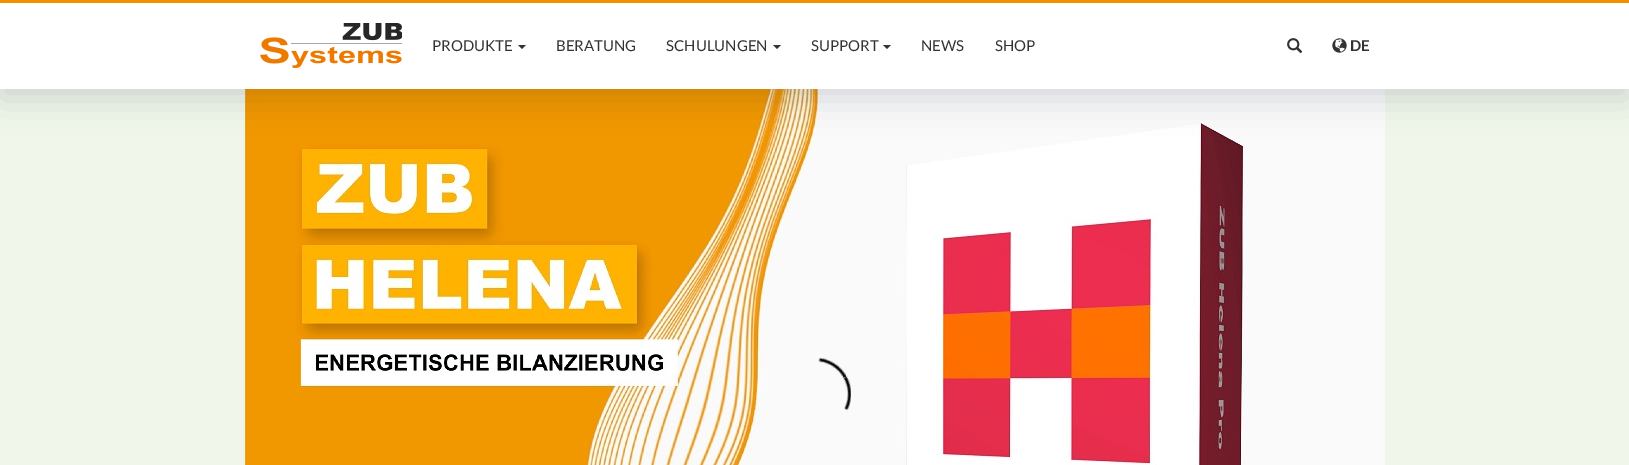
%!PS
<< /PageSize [1629 465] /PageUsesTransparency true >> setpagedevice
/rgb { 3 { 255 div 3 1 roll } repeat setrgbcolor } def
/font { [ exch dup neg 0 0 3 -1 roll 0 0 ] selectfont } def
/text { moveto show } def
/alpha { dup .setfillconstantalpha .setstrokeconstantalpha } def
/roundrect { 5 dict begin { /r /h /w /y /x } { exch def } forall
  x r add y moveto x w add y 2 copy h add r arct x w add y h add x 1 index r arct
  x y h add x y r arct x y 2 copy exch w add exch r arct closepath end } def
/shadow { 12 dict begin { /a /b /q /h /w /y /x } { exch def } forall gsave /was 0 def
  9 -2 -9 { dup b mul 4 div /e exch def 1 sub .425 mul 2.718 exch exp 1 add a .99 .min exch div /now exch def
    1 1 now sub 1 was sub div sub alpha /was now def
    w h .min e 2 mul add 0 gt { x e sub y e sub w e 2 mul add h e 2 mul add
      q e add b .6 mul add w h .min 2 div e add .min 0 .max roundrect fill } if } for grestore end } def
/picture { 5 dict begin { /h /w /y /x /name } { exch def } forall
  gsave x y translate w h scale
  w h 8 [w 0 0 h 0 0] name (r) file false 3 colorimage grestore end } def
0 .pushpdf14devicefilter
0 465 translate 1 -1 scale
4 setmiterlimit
240 247 234 rgb
0 0 1629 465 rectfill
(img_04.rgb) 245 89 1140 376 picture
9 16 43 rgb
0 10 1629 89 0 16.5 0.15 shadow
255 255 255 rgb
0 3 1629 86 rectfill
242 145 0 rgb
0 0 1629 3 rectfill
(img_01.rgb) 260 23 142 45 picture
51 51 51 rgb
518 45 moveto 8 0 rlineto -4 4 rlineto closepath fill
773 45 moveto 8 0 rlineto -4 4 rlineto closepath fill
883 45 moveto 8 0 rlineto -4 4 rlineto closepath fill
(img_02.rgb) 1287 38 16 15 picture
(img_03.rgb) 1332 38 15 15 picture
/Lato-Regular 15 font
(PRODUKTE) 432 51 text
(BERATUNG) 556 51 text
(SCHULUNGEN) 666 51 text
(SUPPORT) 811 51 text
(NEWS) 921 51 text
(SHOP) 995 51 text
/Lato-Bold 15 font
(DE) 1350 51 text
.poppdf14devicefilter showpage
